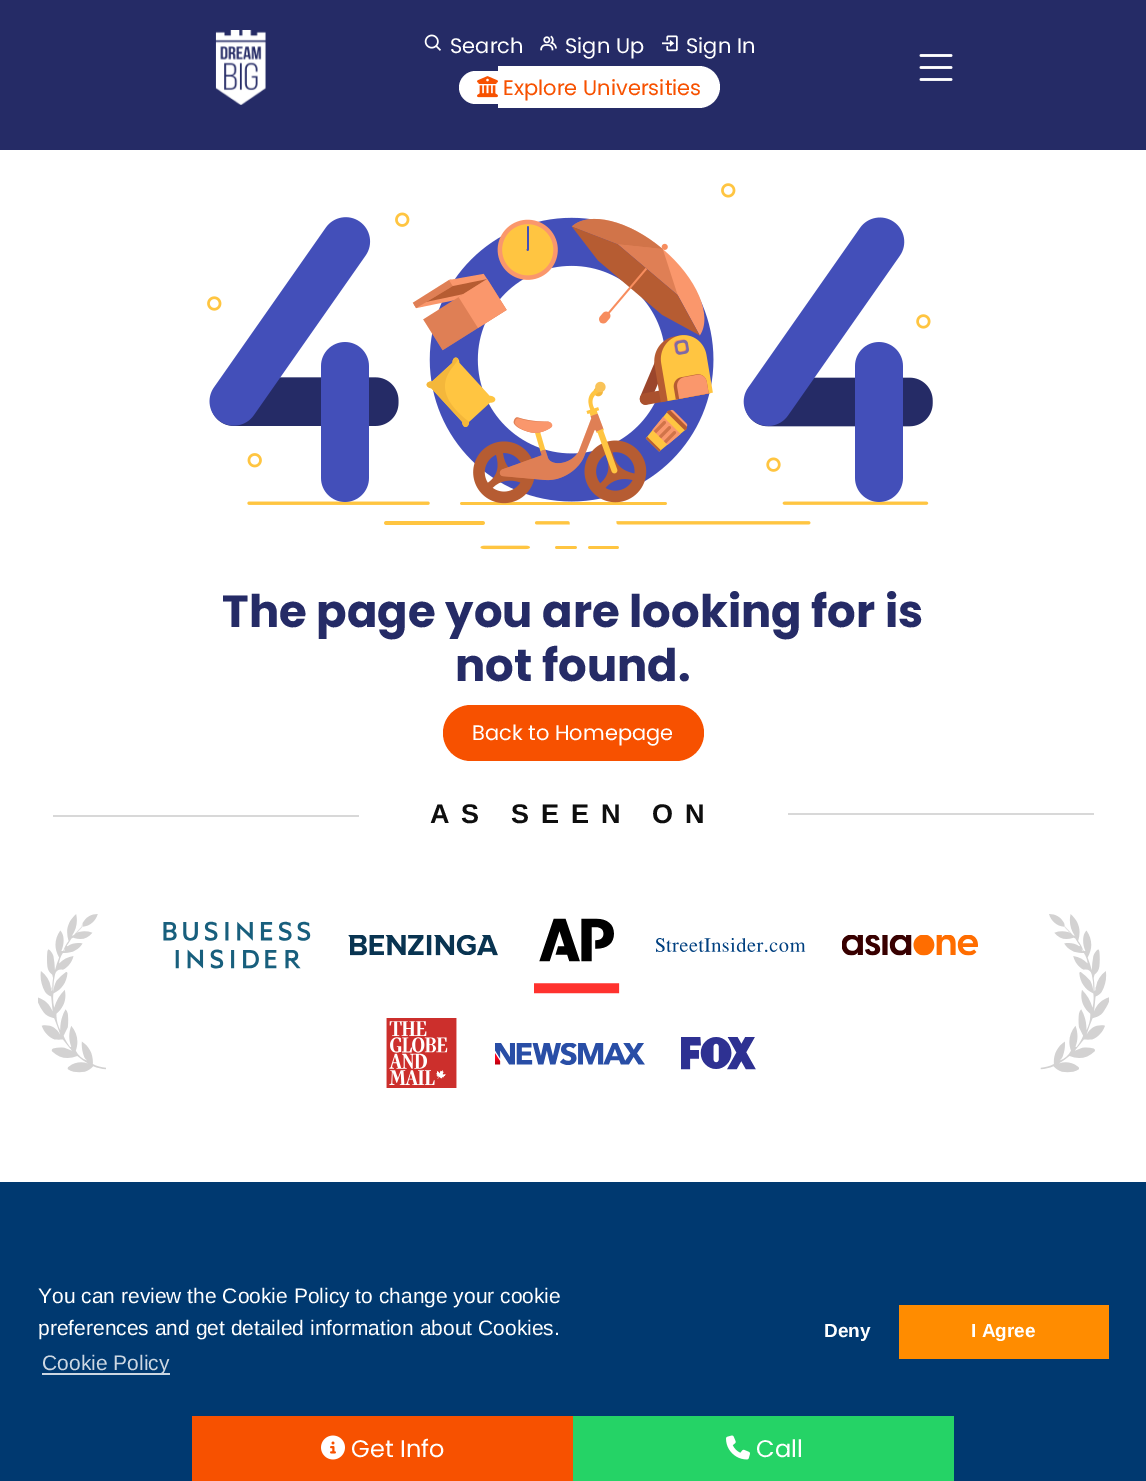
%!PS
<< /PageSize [1146 1481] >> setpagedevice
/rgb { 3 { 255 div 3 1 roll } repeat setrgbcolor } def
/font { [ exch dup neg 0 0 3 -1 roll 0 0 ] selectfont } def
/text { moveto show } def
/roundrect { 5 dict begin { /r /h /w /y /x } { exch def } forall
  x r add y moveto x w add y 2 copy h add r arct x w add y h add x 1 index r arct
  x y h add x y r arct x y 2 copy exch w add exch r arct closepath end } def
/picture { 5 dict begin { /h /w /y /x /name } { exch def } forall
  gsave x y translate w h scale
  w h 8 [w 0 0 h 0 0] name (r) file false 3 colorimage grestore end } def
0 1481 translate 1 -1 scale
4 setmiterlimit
255 255 255 rgb
0 0 1146 1481 rectfill
37 43 102 rgb
0 0 1146 150 rectfill
(img_01.rgb) 215 30 51 75 picture
(img_02.rgb) 424 34 17 17 picture
(img_03.rgb) 540 35 17 16 picture
(img_04.rgb) 662 35 16 17 picture
255 255 255 rgb
475.5 71 moveto 22.5 0 rlineto 0 33 rlineto -22.5 0 rlineto -9 0 -16.5 -7.5 -16.5 -16.5 rcurveto 0 -9 7.5 -16.5 16.5 -16.5 rcurveto closepath fill
498 66 moveto 201 0 rlineto 11.5 0 21 9.5 21 21 rcurveto 0 11.5 -9.5 21 -21 21 rcurveto -201 0 rlineto closepath fill
(img_05.rgb) 477 76 21 22 picture
(img_06.rgb) 919 54 34 27 picture
(img_07.rgb) 207 183 726 367 picture
247 81 0 rgb
443 705 261 56 28 roundrect fill
216 216 216 rgb
788 813 306 2 rectfill
53 815 306 2 rectfill
(img_08.rgb) 38 914 68 159 picture
(img_09.rgb) 163 921 148 48 picture
(img_10.rgb) 348 935 150 21 picture
(img_11.rgb) 534 918 86 76 picture
(img_12.rgb) 656 938 150 14 picture
(img_13.rgb) 842 935 136 21 picture
(img_14.rgb) 386 1018 71 70 picture
(img_15.rgb) 495 1043 150 22 picture
(img_16.rgb) 681 1037 75 33 picture
(img_17.rgb) 1040 914 69 159 picture
0 57 112 rgb
0 1182 1146 299 rectfill
204 215 226 rgb
42 1373 128 2 rectfill
255 140 0 rgb
899 1305 210 54 rectfill
247 81 0 rgb
192 1416 381 65 rectfill
(img_18.rgb) 321 1435 24 25 picture
37 211 102 rgb
573 1416 381 65 rectfill
(img_19.rgb) 726 1435 24 25 picture
/Poppins-Regular 21 font
255 255 255 rgb
(Search) 450 53 text
(Sign Up) 565 53 text
(Sign In) 686 53 text
247 81 0 rgb
(Explore Universities) 503 95 text
/Poppins-Bold 45 font
37 43 102 rgb
(The page you are looking for is) 222 627 text
(not found.) 455 681 text
/Poppins-Regular 21 font
255 255 255 rgb
(Back to Homepage) 472 740 text
/LiberationSans-Bold 27 font
14 14 14 rgb
430 823 moveto 12 0 (AS SEEN ON) ashow
/LiberationSans-Regular 21 font
255 255 255 rgb
(You can review the Cookie Policy to change your cookie) 38 1303 text
(preferences and get detailed information about Cookies.) 38 1335 text
204 215 226 rgb
(Cookie Policy) 42 1370 text
/LiberationSans-Bold 19 font
255 255 255 rgb
(Deny) 824 1337 text
(I Agree) 971 1337 text
/Poppins-Regular 24 font
(Get Info) 351 1457 text
(Call) 756 1457 text
showpage
